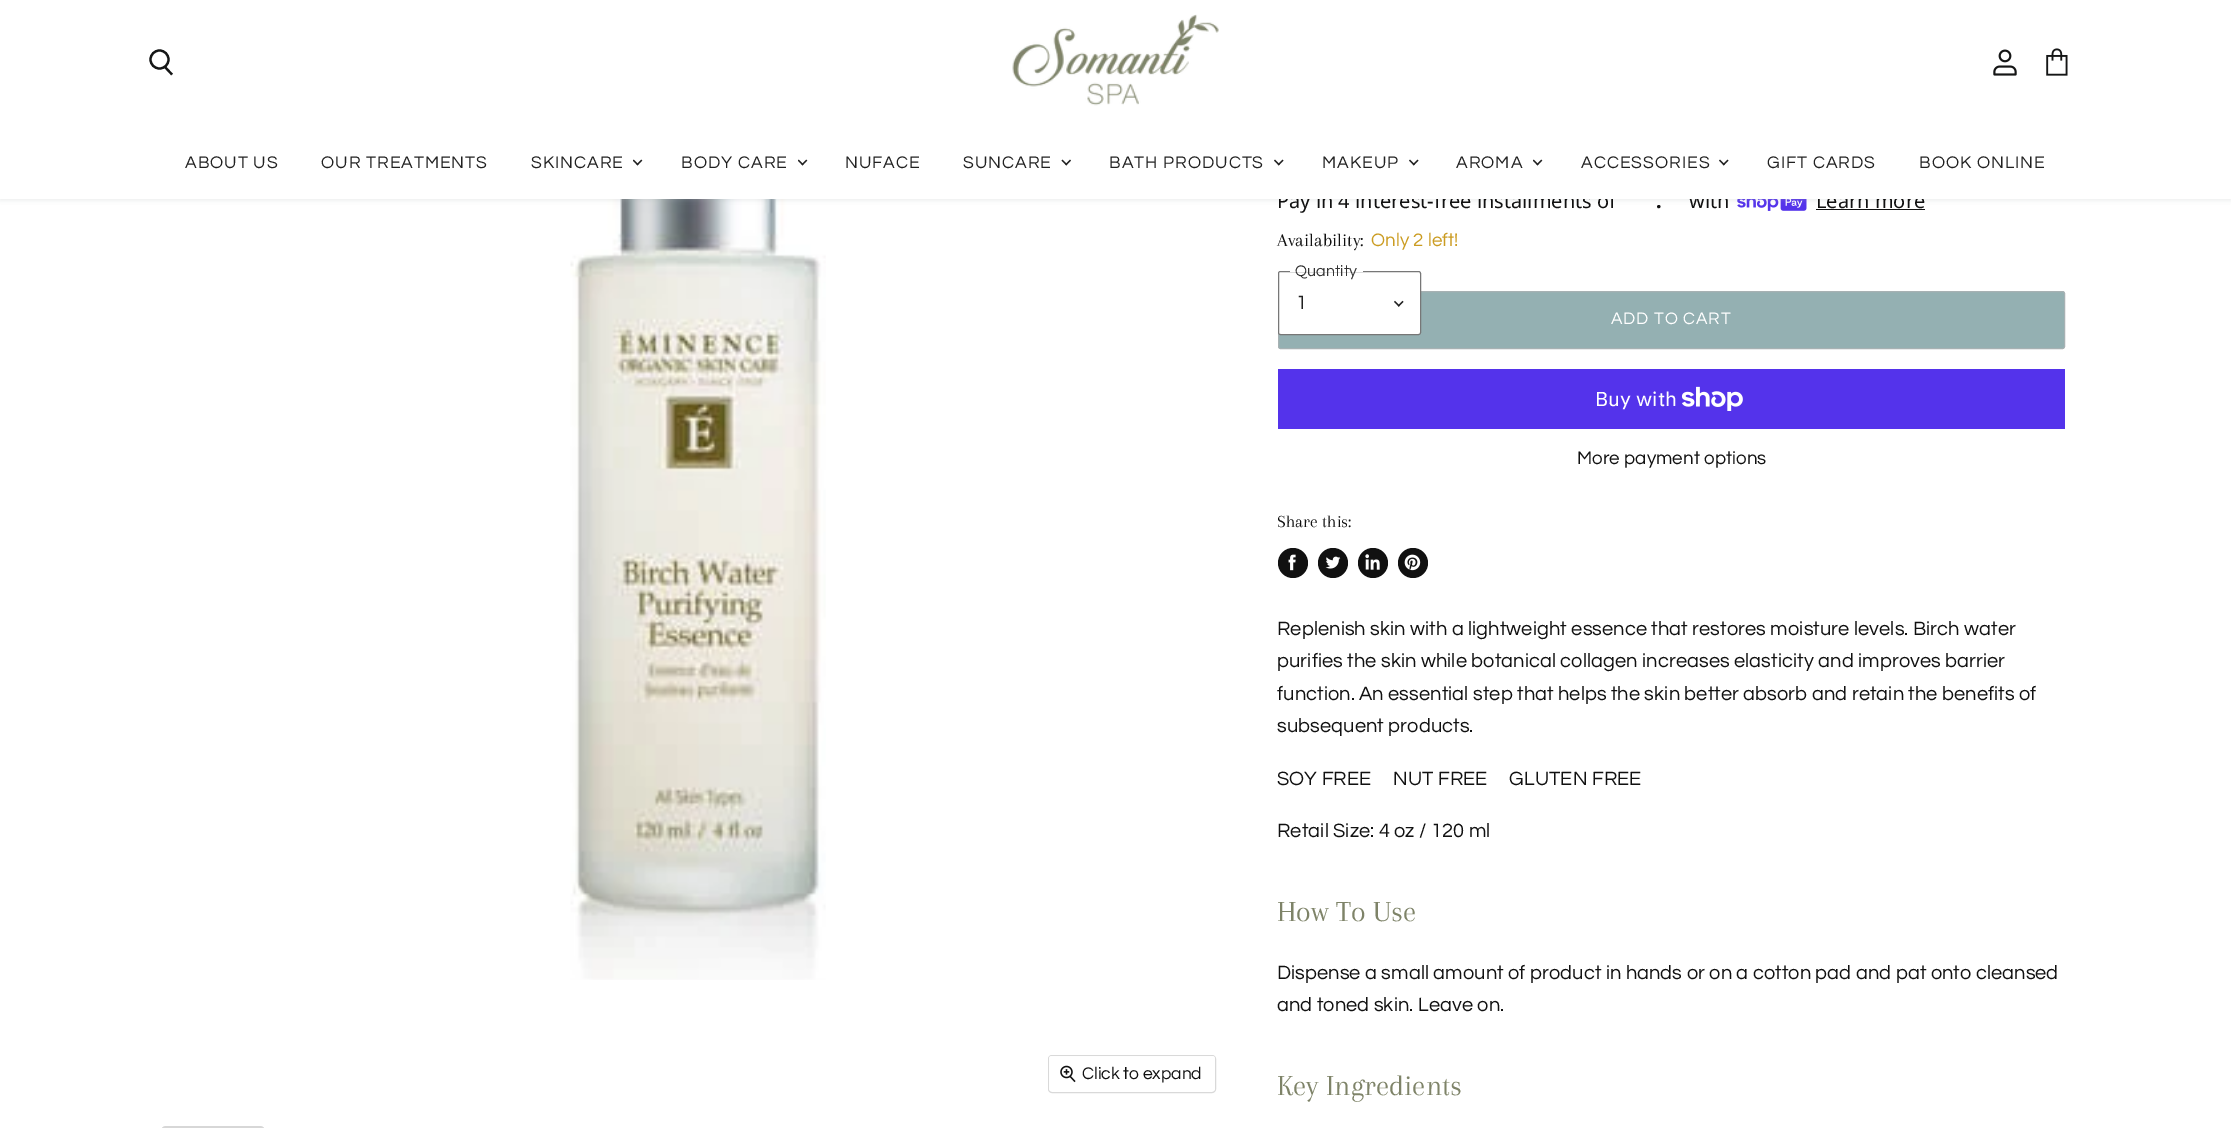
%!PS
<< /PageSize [2231 1128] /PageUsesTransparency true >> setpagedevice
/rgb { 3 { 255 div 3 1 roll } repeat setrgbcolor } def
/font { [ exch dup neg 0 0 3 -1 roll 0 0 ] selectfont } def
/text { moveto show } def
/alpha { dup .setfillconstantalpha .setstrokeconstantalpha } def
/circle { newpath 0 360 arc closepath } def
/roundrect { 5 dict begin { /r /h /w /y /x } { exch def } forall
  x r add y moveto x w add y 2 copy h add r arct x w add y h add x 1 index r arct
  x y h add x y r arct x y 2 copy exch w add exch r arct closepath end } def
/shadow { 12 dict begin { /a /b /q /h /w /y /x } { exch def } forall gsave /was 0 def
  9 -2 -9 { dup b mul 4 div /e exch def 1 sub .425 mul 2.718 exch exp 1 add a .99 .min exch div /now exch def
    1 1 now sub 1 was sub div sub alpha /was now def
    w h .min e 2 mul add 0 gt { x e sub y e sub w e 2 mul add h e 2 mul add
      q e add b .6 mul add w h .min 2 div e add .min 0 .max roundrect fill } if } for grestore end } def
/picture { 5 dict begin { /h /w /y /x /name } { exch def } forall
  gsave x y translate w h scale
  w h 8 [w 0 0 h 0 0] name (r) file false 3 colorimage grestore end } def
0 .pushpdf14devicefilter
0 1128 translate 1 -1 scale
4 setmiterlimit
255 255 255 rgb
0 0 2231 1128 rectfill
(img_07.rgb) 570 199 256 781 picture
(img_09.rgb) 1737 199 70 12 picture
167 177 179 rgb
0 1 2231 199 0 2.5 0.25 shadow
217 217 217 rgb
1048.5 1055.5 167 37 3.5 roundrect stroke
0.9 alpha
255 255 255 rgb
1049 1056 166 35 2.5 roundrect fill
1 alpha
(img_08.rgb) 1060 1065 16 18 picture
215 215 215 rgb
3 setlinewidth
162.5 1127.5 101 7 3.5 roundrect stroke
17 17 17 rgb
1816 209 109 1 rectfill
148 176 178 rgb
1278.5 291.5 786 57 2 roundrect gsave fill grestore
167 177 179 rgb
1 setlinewidth
stroke
255 255 255 rgb
1278.5 271.5 142 63 2 roundrect gsave fill grestore
119 119 119 rgb
stroke
255 255 255 rgb
1290 271 73 1 rectfill
(img_10.rgb) 1394 300 10 7 picture
84 51 235 rgb
1278 369 787 60 rectfill
(img_11.rgb) 1681 386 62 25 picture
17 17 17 rgb
1293 563 15 circle fill
(img_12.rgb) 1288 554 8 17 picture
1333 563 15 circle fill
(img_13.rgb) 1325 556 16 13 picture
1373 563 15 circle fill
(img_14.rgb) 1365 554 15 16 picture
1413 563 15 circle fill
(img_15.rgb) 1404 554 17 17 picture
/Questrial-Regular 17.5 font
(Click to expand) 1082 1079 text
/NotoSans-Regular 20 font
(Pay in 4 interest-free installments of) 1277 208 text
/NotoSans-Bold 20 font
(.) 1656 208 text
/NotoSans-Regular 20 font
(with) 1689 208 text
(Learn more) 1816 208 text
255 255 255 rgb
0 0 2231 199 rectfill
(img_03.rgb) 2046 48 22 28 picture
(img_02.rgb) 1993 49 24 27 picture
21 22 22 rgb
2.2 setlinewidth
172 74.5 moveto -7.5 -8 rlineto stroke
159.5 59.5 9 circle stroke
(img_01.rgb) 1012 14 207 92 picture
/Questrial-Regular 17.5 font
33 33 33 rgb
1919 168 moveto 1 0 (BOOK ONLINE) ashow
1767 168 moveto 1 0 (GIFT CARDS) ashow
(img_06.rgb) 1719 159 10 7 picture
1581 168 moveto 1 0 (ACCESSORIES) ashow
(img_04.rgb) 1533 159 10 7 picture
1456 168 moveto 1 0 (AROMA) ashow
(img_06.rgb) 1409 159 10 7 picture
1322 168 moveto 1 0 (MAKEUP) ashow
(img_06.rgb) 1274 159 10 7 picture
1109 168 moveto 1 0 (BATH PRODUCTS) ashow
(img_05.rgb) 1061 159 10 7 picture
963 168 moveto 1 0 (SUNCARE) ashow
845 168 moveto 1 0 (NUFACE) ashow
(img_04.rgb) 798 159 10 7 picture
681 168 moveto 1 0 (BODY CARE) ashow
(img_04.rgb) 633 159 10 7 picture
531 168 moveto 1 0 (SKINCARE) ashow
321 168 moveto 1 0 (OUR TREATMENTS) ashow
185 168 moveto 1 0 (ABOUT US) ashow
/Arapey-Regular 18.75 font
17 17 17 rgb
1277 246 moveto 0.1 0 (Availability:) ashow
/Questrial-Regular 18.75 font
203 156 34 rgb
1371 246 moveto 0.1 0 (Only 2 left!) ashow
/Questrial-Regular 16 font
51 51 51 rgb
1295 276 moveto 0.1 0 (Quantity) ashow
/Questrial-Regular 20 font
33 33 33 rgb
1296 309 moveto 0.1 0 (1) ashow
/Questrial-Regular 17.25 font
255 255 255 rgb
1611 324 moveto 0.9 0 (ADD TO CART) ashow
/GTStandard-Regular 20 font
1595 406 moveto 0.1 0 (Buy with) ashow
/Questrial-Regular 18.75 font
17 17 17 rgb
1577 464 moveto 0.1 0 (More payment options) ashow
/Arapey-Regular 17.5 font
1277 527 moveto 0.1 0 (Share this:) ashow
/Questrial-Regular 20 font
1277 635 moveto 0.1 0 (Replenish skin with a lightweight essence that restores moisture levels. Birch water) ashow
1277 667 moveto 0.1 0 (purifies the skin while botanical collagen increases elasticity and improves barrier) ashow
1277 700 moveto 0.1 0 (function. An essential step that helps the skin better absorb and retain the benefits of) ashow
1277 732 moveto 0.1 0 (subsequent products.) ashow
1277 785 moveto 0.1 0 (SOY FREE     NUT FREE     GLUTEN FREE) ashow
1277 837 moveto 0.1 0 (Retail Size: 4 oz / 120 ml) ashow
/Arapey-Regular 30 font
126 131 104 rgb
(How To Use) 1277 921 text
/Questrial-Regular 20 font
17 17 17 rgb
1277 979 moveto 0.1 0 (Dispense a small amount of product in hands or on a cotton pad and pat onto cleansed) ashow
1277 1011 moveto 0.1 0 (and toned skin. Leave on.) ashow
/Arapey-Regular 30 font
126 131 104 rgb
(Key Ingredients) 1277 1095 text
.poppdf14devicefilter showpage
